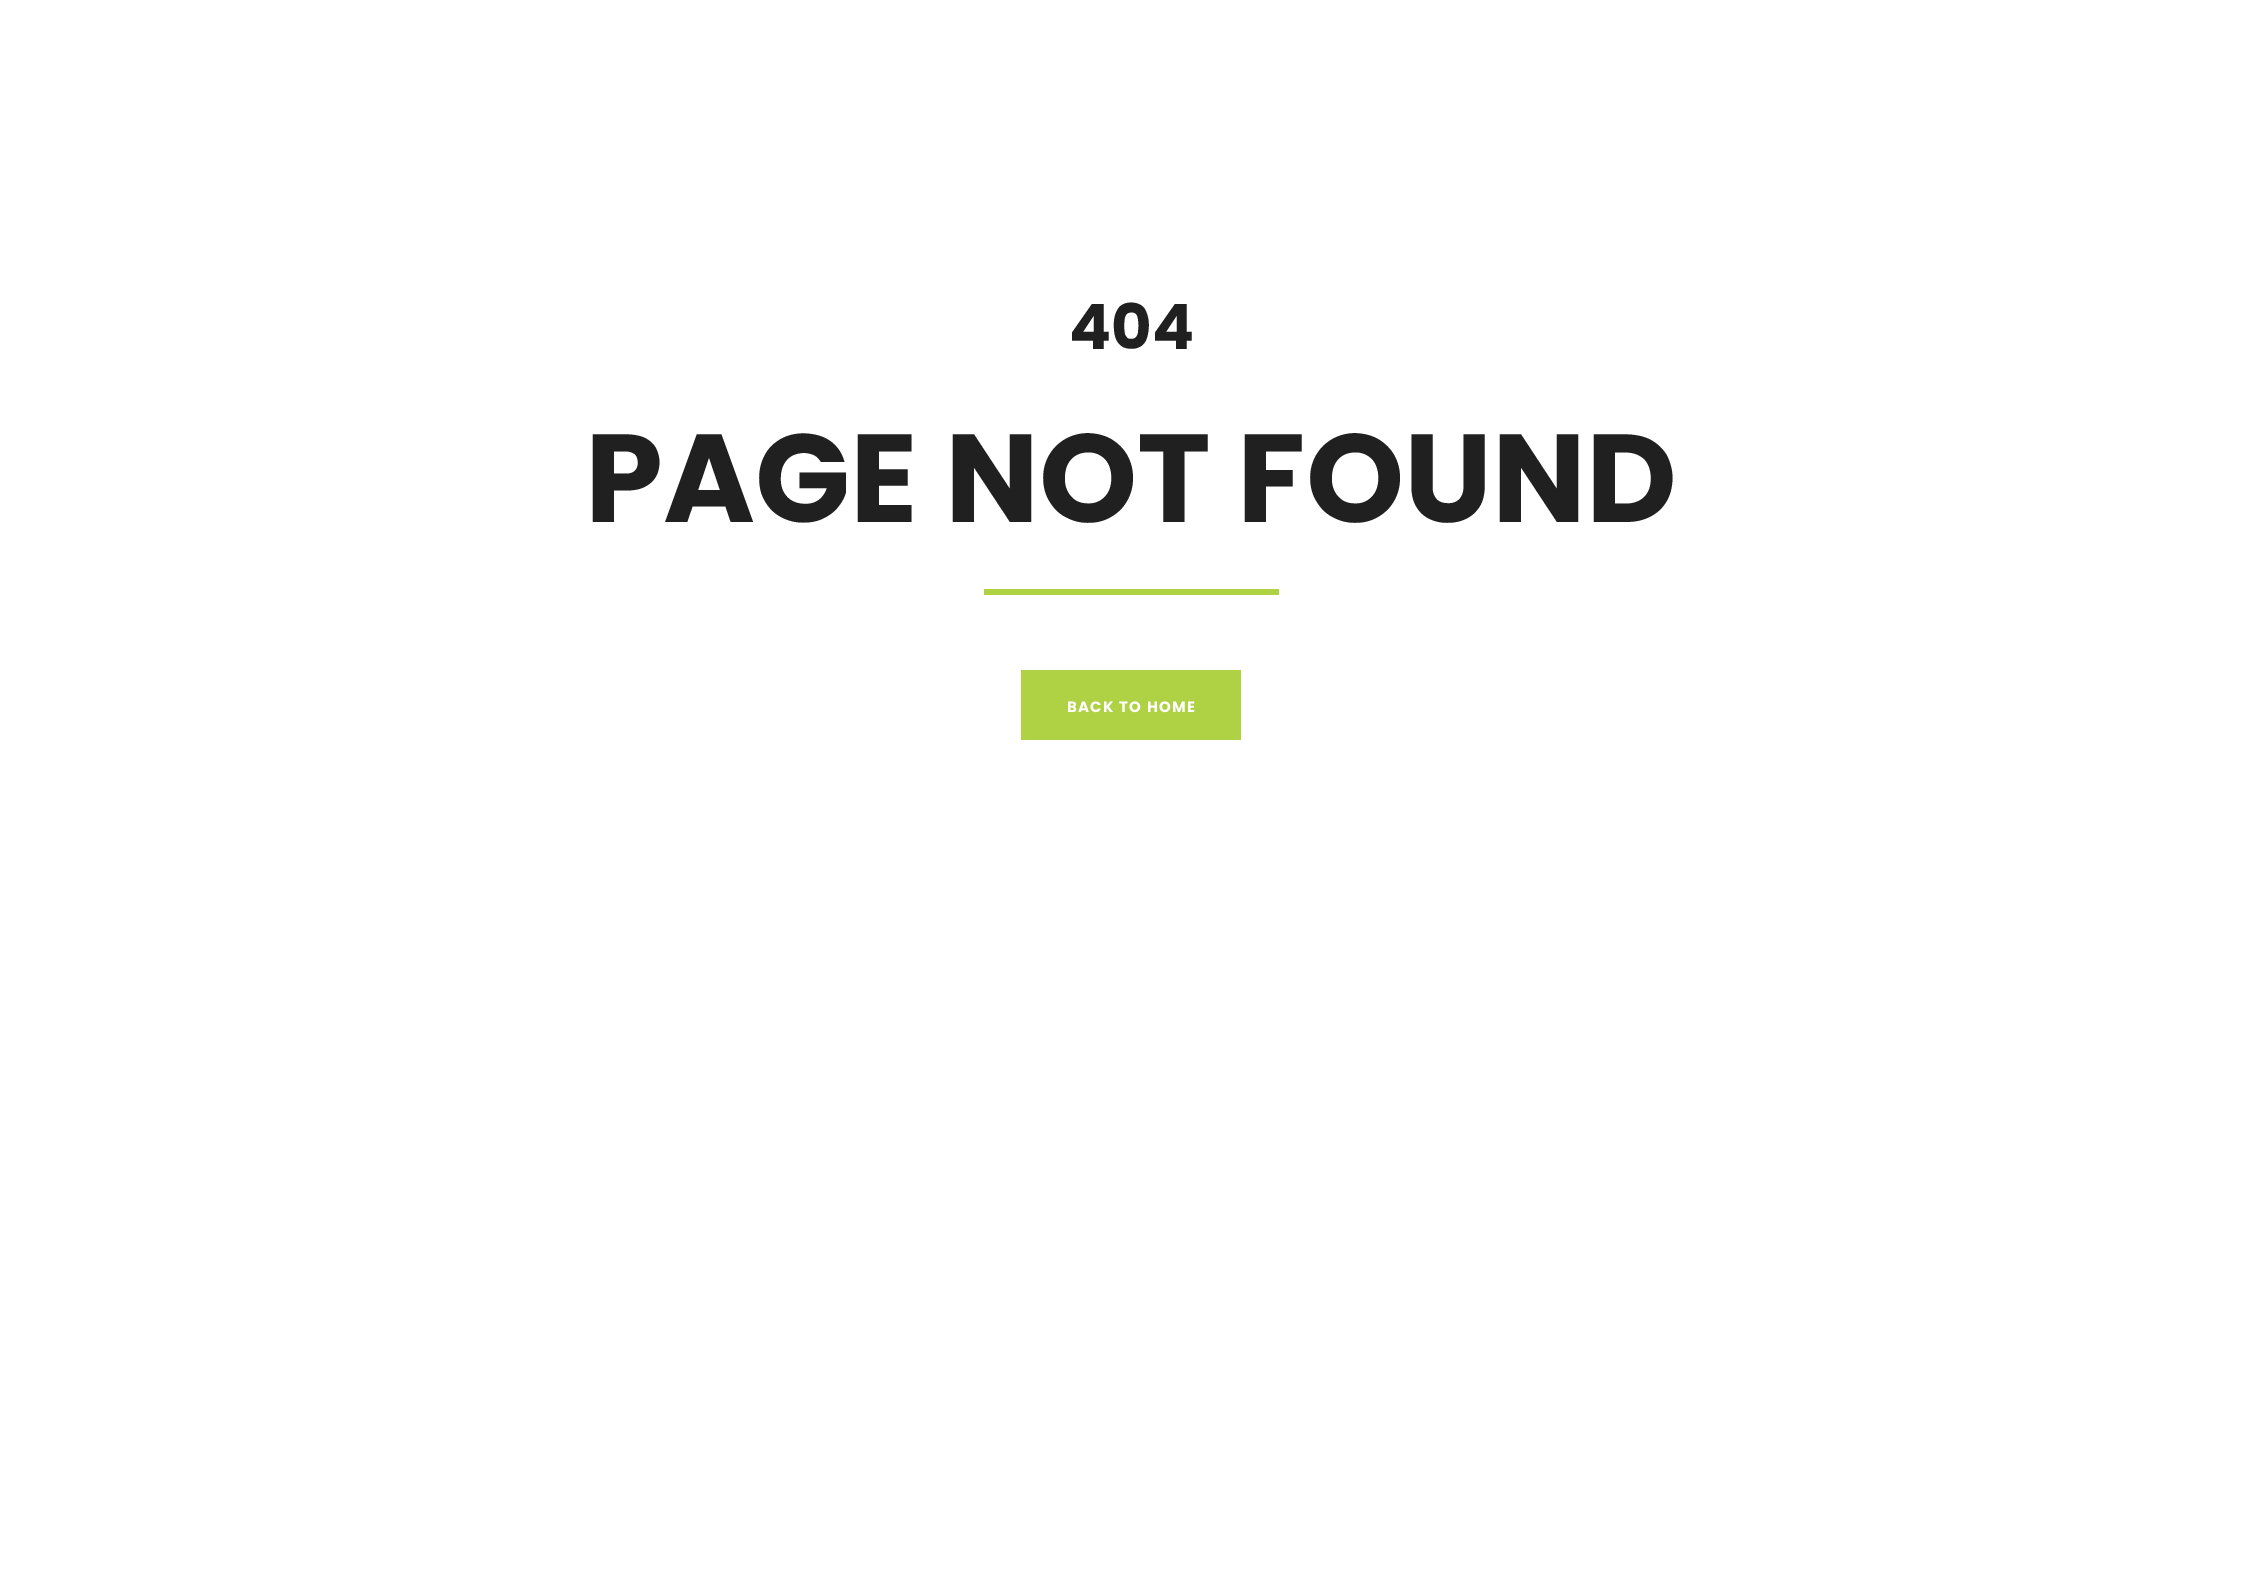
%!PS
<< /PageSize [2262 1587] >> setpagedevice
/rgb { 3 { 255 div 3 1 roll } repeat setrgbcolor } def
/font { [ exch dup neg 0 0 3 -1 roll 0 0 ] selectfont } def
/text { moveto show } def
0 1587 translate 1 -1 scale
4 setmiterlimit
255 255 255 rgb
0 0 2262 1587 rectfill
175 210 69 rgb
984 589 295 6 rectfill
1021 670 220 70 rectfill
/Poppins-Bold 62.5 font
32 32 32 rgb
(404) 1069 349 text
/Poppins-Bold 125 font
(PAGE NOT FOUND) 585 522 text
/Poppins-Bold 15 font
255 255 255 rgb
1067 712 moveto 1.25 0 (BACK TO HOME) ashow
showpage
